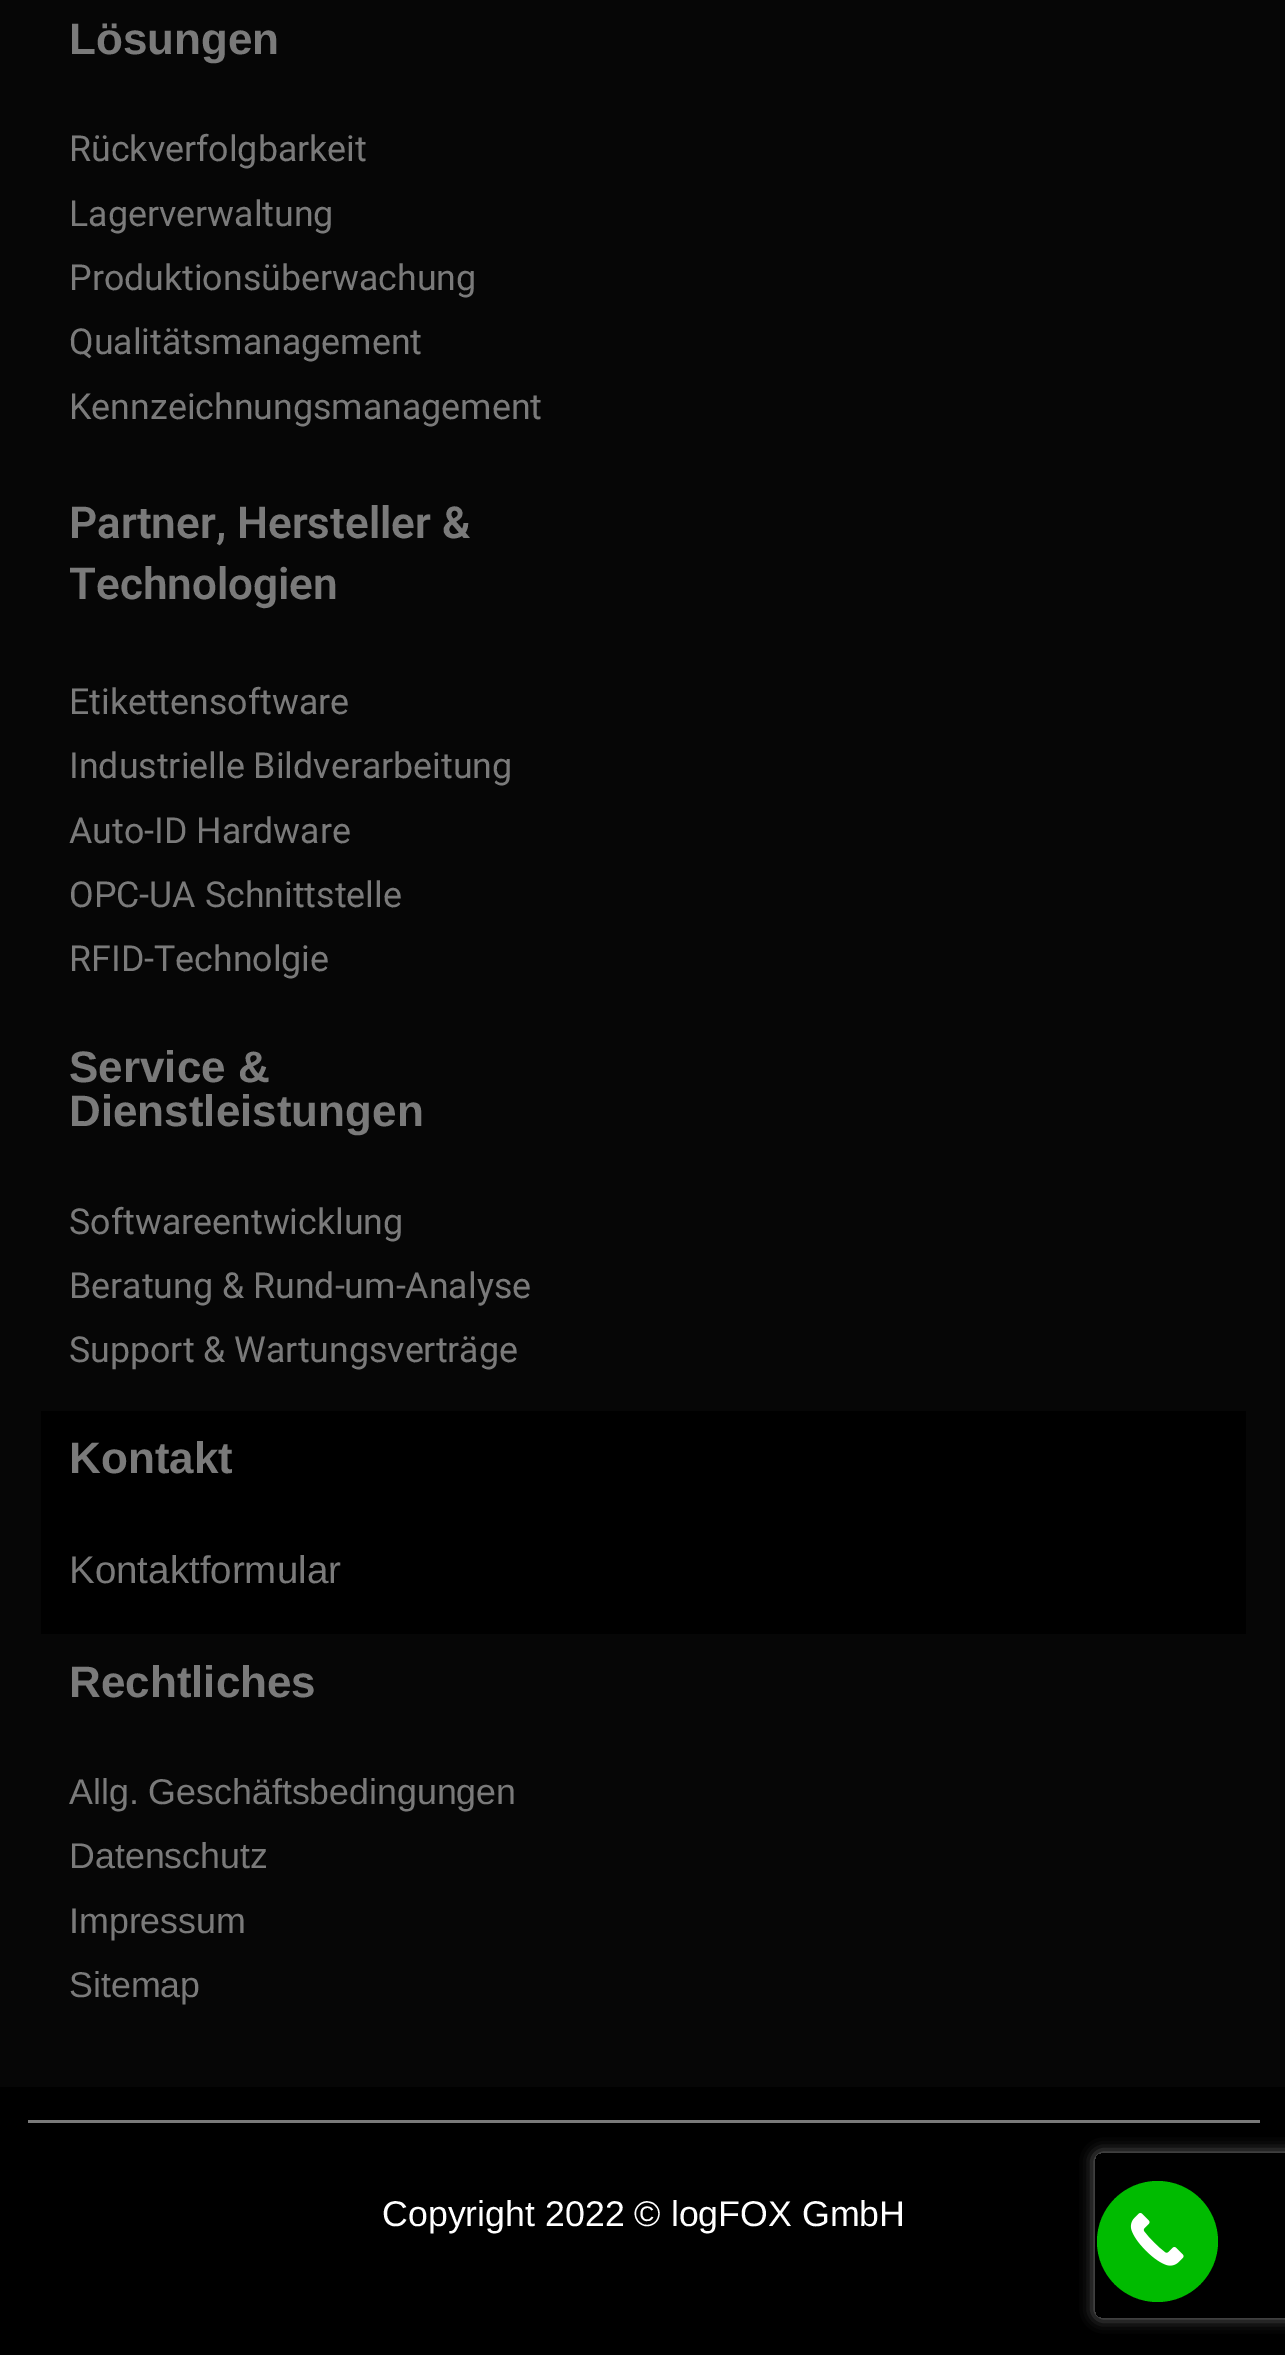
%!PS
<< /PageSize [1285 2355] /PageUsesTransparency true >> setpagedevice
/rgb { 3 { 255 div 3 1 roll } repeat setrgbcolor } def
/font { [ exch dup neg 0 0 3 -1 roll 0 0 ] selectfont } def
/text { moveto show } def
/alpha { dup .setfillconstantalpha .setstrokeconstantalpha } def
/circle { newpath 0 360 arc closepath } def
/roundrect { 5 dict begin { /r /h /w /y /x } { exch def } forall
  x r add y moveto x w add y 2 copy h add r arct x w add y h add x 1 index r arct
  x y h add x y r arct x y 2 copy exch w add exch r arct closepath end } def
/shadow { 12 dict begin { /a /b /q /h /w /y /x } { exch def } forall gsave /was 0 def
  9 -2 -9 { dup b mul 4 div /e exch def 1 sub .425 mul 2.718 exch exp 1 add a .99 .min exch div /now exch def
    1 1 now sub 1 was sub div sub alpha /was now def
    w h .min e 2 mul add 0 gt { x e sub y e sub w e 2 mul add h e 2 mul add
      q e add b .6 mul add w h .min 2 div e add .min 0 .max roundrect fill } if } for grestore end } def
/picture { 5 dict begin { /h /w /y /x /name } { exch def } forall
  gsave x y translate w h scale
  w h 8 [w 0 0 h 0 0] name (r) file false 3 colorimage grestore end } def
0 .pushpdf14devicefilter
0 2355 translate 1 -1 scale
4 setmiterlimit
6 6 6 rgb
0 0 1285 2355 rectfill
0 0 0 rgb
41 1411 1205 223 rectfill
0 2087 1285 268 rectfill
122 122 122 rgb
28 2120 1232 3 rectfill
gsave
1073 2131 moveto 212 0 rlineto 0 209 rlineto -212 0 rlineto closepath 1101 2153 moveto 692 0 rlineto 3.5 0 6 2.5 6 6 rcurveto 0 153 rlineto 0 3.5 -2.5 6 -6 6 rcurveto -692 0 rlineto -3.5 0 -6 -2.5 -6 -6 rcurveto 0 -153 rlineto 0 -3.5 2.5 -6 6 -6 rcurveto closepath eoclip newpath
128 128 128 rgb
1095 2153 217 165 6 7 1 shadow
grestore
0 187 0 rgb
1157.5 2241.5 60.5 circle fill
(img_01.rgb) 1130 2213 54 53 picture
/LiberationSans-Bold 44 font
122 122 122 rgb
(Lösungen) 69 54 text
/Roboto-Regular 35.75 font
(Rückverfolgbarkeit) 69 161 text
(Lagerverwaltung) 69 226 text
(Produktionsüberwachung) 69 290 text
(Qualitätsmanagement) 69 354 text
(Kennzeichnungsmanagement) 69 419 text
/Roboto-SemiBold 44 font
(Partner, Hersteller &) 69 538 text
(Technologien) 69 599 text
/Roboto-Regular 35.75 font
(Etikettensoftware) 69 714 text
(Industrielle Bildverarbeitung) 69 778 text
(Auto-ID Hardware) 69 843 text
(OPC-UA Schnittstelle) 69 907 text
(RFID-Technolgie) 69 971 text
/LiberationSans-Bold 44 font
(Service &) 69 1082 text
(Dienstleistungen) 69 1126 text
/Roboto-Regular 35.75 font
(Softwareentwicklung) 69 1234 text
(Beratung & Rund-um-Analyse) 69 1298 text
(Support & Wartungsverträge) 69 1362 text
/LiberationSans-Bold 44 font
(Kontakt) 69 1473 text
/LiberationSans-Regular 38.5 font
(Kontaktformular) 69 1583 text
/LiberationSans-Bold 44 font
(Rechtliches) 69 1697 text
/LiberationSans-Regular 35.75 font
(Allg. Geschäftsbedingungen) 69 1804 text
(Datenschutz) 69 1868 text
(Impressum) 69 1933 text
(Sitemap) 69 1997 text
255 255 255 rgb
(Copyright 2022 © logFOX GmbH) 382 2226 text
.poppdf14devicefilter showpage
